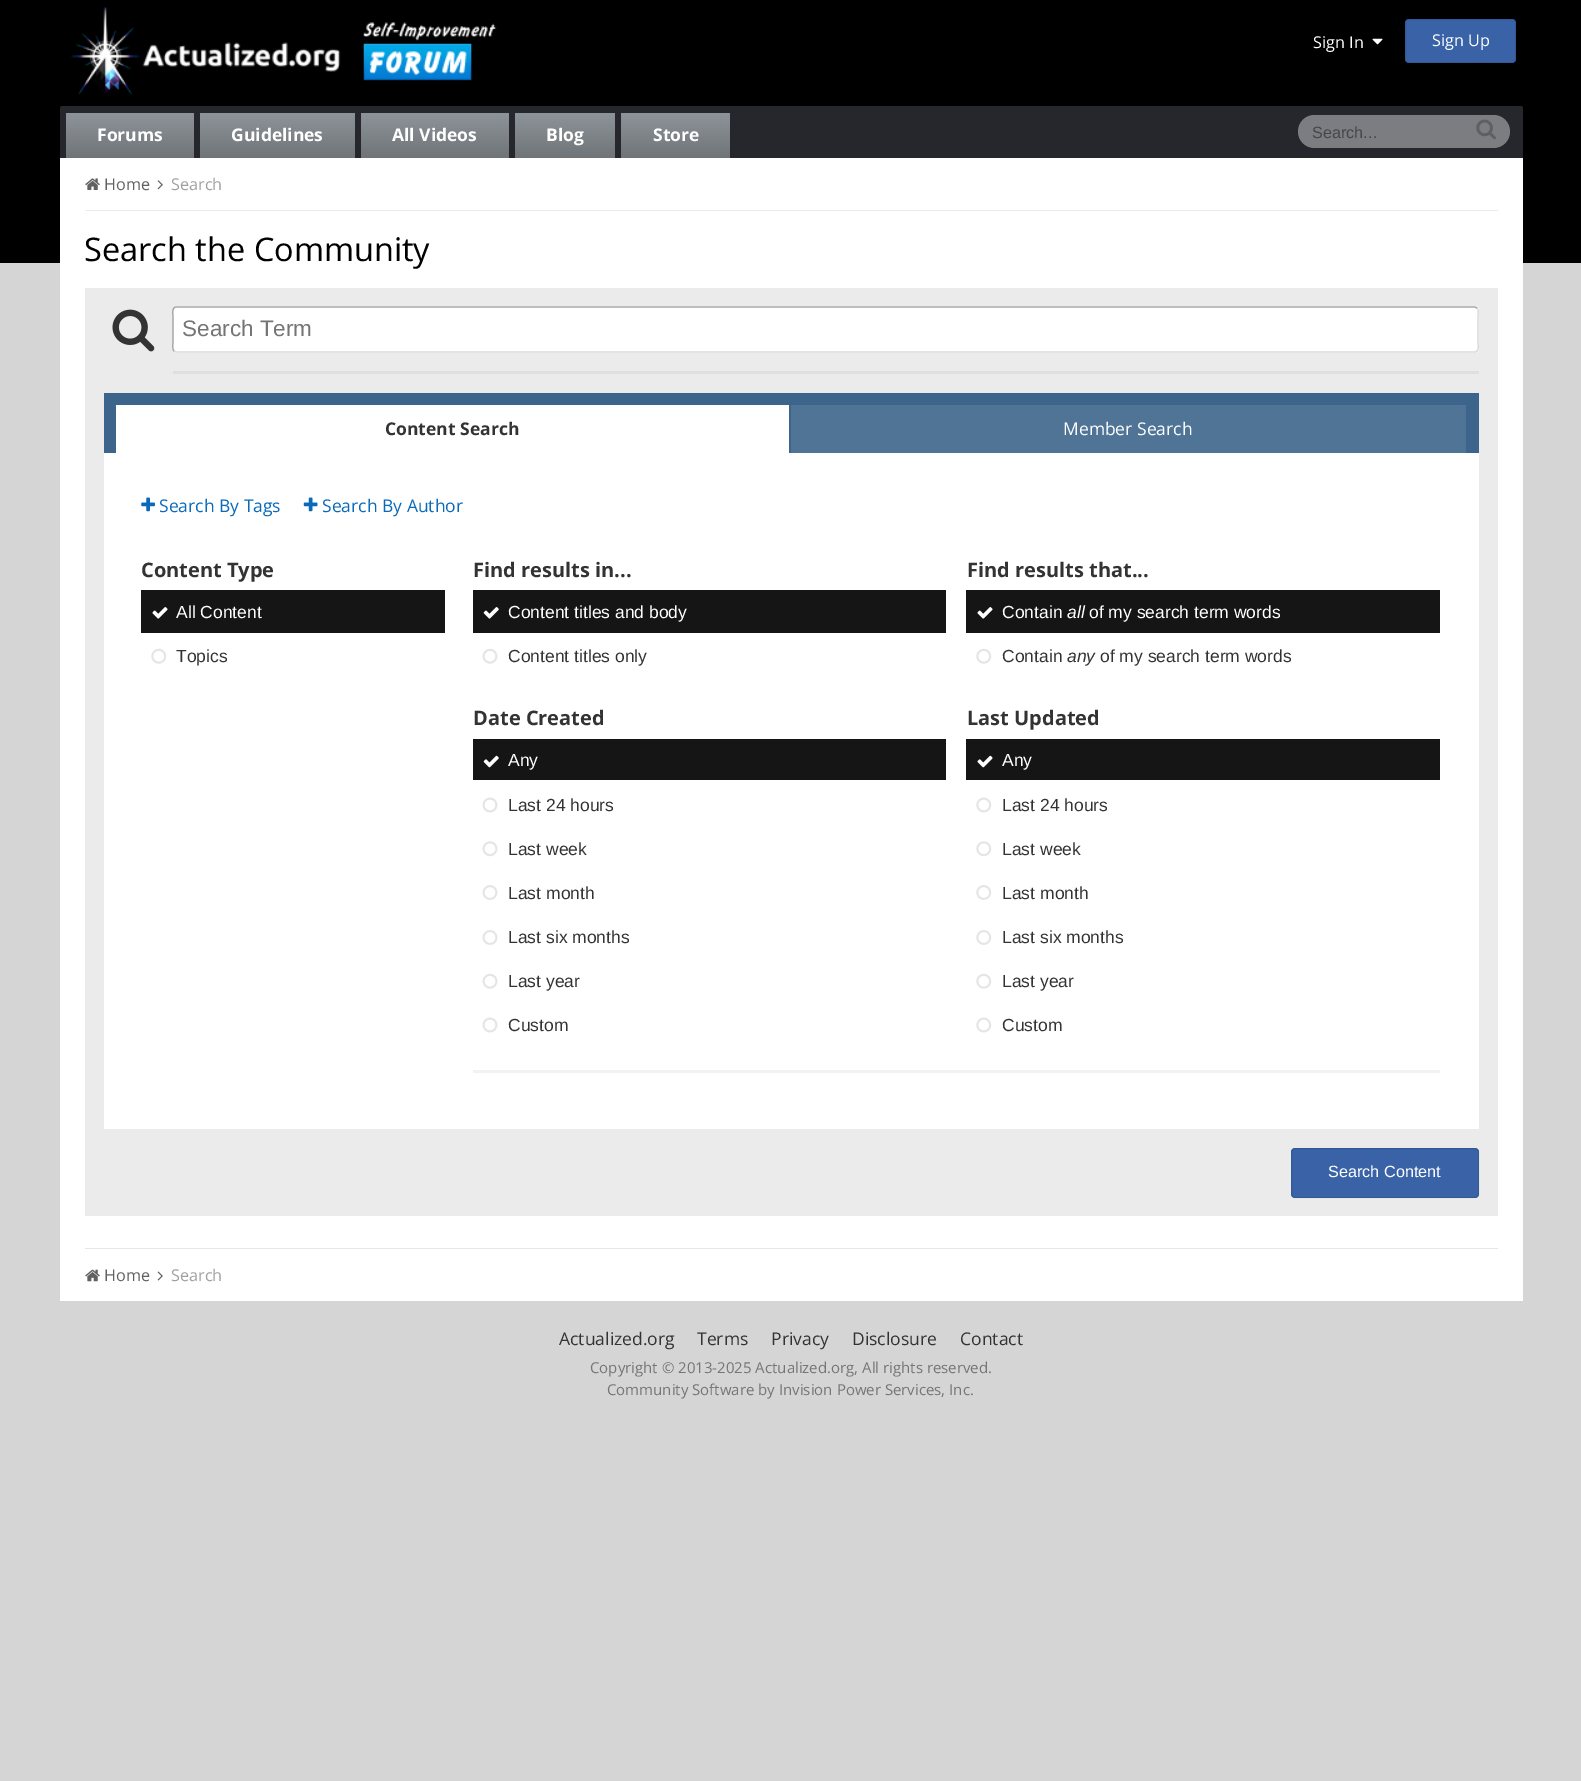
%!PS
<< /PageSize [1581 1781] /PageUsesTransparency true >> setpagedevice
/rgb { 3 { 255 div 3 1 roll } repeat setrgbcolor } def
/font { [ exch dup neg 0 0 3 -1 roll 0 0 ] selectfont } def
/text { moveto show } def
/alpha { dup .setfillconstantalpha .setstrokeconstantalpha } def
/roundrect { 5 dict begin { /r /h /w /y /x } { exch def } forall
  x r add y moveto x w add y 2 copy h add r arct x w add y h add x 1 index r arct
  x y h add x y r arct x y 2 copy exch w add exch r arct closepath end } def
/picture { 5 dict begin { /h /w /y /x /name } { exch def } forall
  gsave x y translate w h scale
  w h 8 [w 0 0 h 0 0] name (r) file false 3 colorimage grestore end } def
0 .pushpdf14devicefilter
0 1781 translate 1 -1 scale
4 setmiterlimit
213 213 213 rgb
0 0 1581 1781 rectfill
0 0 0 rgb
0 0 1581 263 rectfill
(img_01.rgb) 71 7 426 88 picture
(img_02.rgb) 1372 38 11 7 picture
57 99 166 rgb
1405 19 111 44 4 roundrect fill
0.1 alpha
0 0 0 rgb
1405.5 19.5 110 43 3.5 roundrect stroke
1 alpha
37 39 45 rgb
62.5 106 moveto 1458 0 rlineto 1.5 0 2.5 1 2.5 2.5 rcurveto 0 49.5 rlineto -1463 0 rlineto 0 -49.5 rlineto 0 -1.5 1 -2.5 2.5 -2.5 rcurveto closepath fill
gsave 68.5 113 moveto 123 0 rlineto 1.5 0 2.5 1 2.5 2.5 rcurveto 0 42.5 rlineto -128 0 rlineto 0 -42.5 rlineto 0 -1.5 1 -2.5 2.5 -2.5 rcurveto closepath clip newpath
<< /ShadingType 2 /ColorSpace /DeviceRGB /Coords [130 113 130 158] /Extend [true true] /Function << /FunctionType 2 /Domain [0 1] /C0 [0.553 0.58 0.6] /C1 [0.435 0.455 0.471] /N 1 >> >> shfill grestore
gsave 202.5 113 moveto 150 0 rlineto 1.5 0 2.5 1 2.5 2.5 rcurveto 0 42.5 rlineto -155 0 rlineto 0 -42.5 rlineto 0 -1.5 1 -2.5 2.5 -2.5 rcurveto closepath clip newpath
<< /ShadingType 2 /ColorSpace /DeviceRGB /Coords [278 113 278 158] /Extend [true true] /Function << /FunctionType 2 /Domain [0 1] /C0 [0.553 0.58 0.6] /C1 [0.435 0.455 0.471] /N 1 >> >> shfill grestore
gsave 363.5 113 moveto 143 0 rlineto 1.5 0 2.5 1 2.5 2.5 rcurveto 0 42.5 rlineto -148 0 rlineto 0 -42.5 rlineto 0 -1.5 1 -2.5 2.5 -2.5 rcurveto closepath clip newpath
<< /ShadingType 2 /ColorSpace /DeviceRGB /Coords [435 113 435 158] /Extend [true true] /Function << /FunctionType 2 /Domain [0 1] /C0 [0.553 0.58 0.6] /C1 [0.435 0.455 0.471] /N 1 >> >> shfill grestore
gsave 517.5 113 moveto 95 0 rlineto 1.5 0 2.5 1 2.5 2.5 rcurveto 0 42.5 rlineto -100 0 rlineto 0 -42.5 rlineto 0 -1.5 1 -2.5 2.5 -2.5 rcurveto closepath clip newpath
<< /ShadingType 2 /ColorSpace /DeviceRGB /Coords [565 113 565 158] /Extend [true true] /Function << /FunctionType 2 /Domain [0 1] /C0 [0.553 0.58 0.6] /C1 [0.435 0.455 0.471] /N 1 >> >> shfill grestore
gsave 623.5 113 moveto 104 0 rlineto 1.5 0 2.5 1 2.5 2.5 rcurveto 0 42.5 rlineto -109 0 rlineto 0 -42.5 rlineto 0 -1.5 1 -2.5 2.5 -2.5 rcurveto closepath clip newpath
<< /ShadingType 2 /ColorSpace /DeviceRGB /Coords [676 113 676 158] /Extend [true true] /Function << /FunctionType 2 /Domain [0 1] /C0 [0.553 0.58 0.6] /C1 [0.435 0.455 0.471] /N 1 >> >> shfill grestore
124 125 129 rgb
1298 115 212 33 16.5 roundrect fill
(img_03.rgb) 1476 119 20 21 picture
255 255 255 rgb
60 158 1463 1143 rectfill
236 236 236 rgb
85 210 1413 1 rectfill
(img_04.rgb) 85 178 15 12 picture
(img_05.rgb) 157 180 6 10 picture
235 235 235 rgb
85 288 1413 928 rectfill
(img_06.rgb) 112 309 43 43 picture
255 255 255 rgb
173 306 1306 47 4 roundrect fill
217 217 217 rgb
1.2 setlinewidth
1477 308 moveto 2 1.5 1 7 1 8.5 rcurveto 0 26 rlineto 0 2 1.5 9.5 -3 9.5 rcurveto -1299 0 rlineto -2 -1 rlineto stroke
166 166 166 rgb
174 351 moveto -2 -2 -1 -7.5 -1 -8.5 rcurveto 0 -26 rlineto 0 -2 -1.5 -9.5 3 -9.5 rcurveto 1299 0 rlineto 2 1 rlineto stroke
223 223 223 rgb
173 371 1306 3 rectfill
61 100 138 rgb
104 393 1375 60 rectfill
255 255 255 rgb
116 405 673 48 rectfill
80 116 150 rgb
791 405 675 48 rectfill
255 255 255 rgb
104 453 1375 676 rectfill
(img_07.rgb) 141 497 14 15 picture
(img_08.rgb) 303 497 15 15 picture
21 21 21 rgb
141 590 304 43 rectfill
(img_09.rgb) 152 607 16 12 picture
(img_10.rgb) 151 648 16 16 picture
473 590 473 43 rectfill
(img_11.rgb) 483 607 16 12 picture
(img_12.rgb) 482 648 16 16 picture
966 590 474 43 rectfill
(img_09.rgb) 977 607 16 12 picture
(img_10.rgb) 976 648 16 16 picture
473 739 473 41 rectfill
(img_13.rgb) 483 755 16 13 picture
(img_14.rgb) 482 797 16 16 picture
(img_15.rgb) 482 841 16 16 picture
(img_16.rgb) 482 885 16 15 picture
(img_16.rgb) 482 930 16 15 picture
(img_12.rgb) 482 973 16 16 picture
(img_14.rgb) 482 1017 16 16 picture
966 739 474 41 rectfill
(img_17.rgb) 977 755 16 13 picture
(img_18.rgb) 976 797 16 16 picture
(img_19.rgb) 976 841 16 16 picture
(img_20.rgb) 976 885 16 15 picture
(img_20.rgb) 976 930 16 15 picture
(img_10.rgb) 976 973 16 16 picture
(img_18.rgb) 976 1017 16 16 picture
242 242 242 rgb
473 1070 967 3 rectfill
57 99 166 rgb
1291 1148 188 50 4 roundrect fill
0.1 alpha
0 0 0 rgb
1 setlinewidth
1291.5 1148.5 187 49 3.5 roundrect stroke
1 alpha
230 230 230 rgb
85 1248 1413 1 rectfill
(img_21.rgb) 85 1269 15 13 picture
(img_22.rgb) 157 1271 6 10 picture
/OpenSans-Regular 16.25 font
255 255 255 rgb
(Sign In) 1313 48 text
(Sign Up) 1432 46 text
/OpenSans-Bold 17.5 font
(Forums) 97 141 text
(Guidelines) 231 141 text
(All Videos) 392 141 text
(Blog) 546 141 text
(Store) 653 141 text
/LiberationSans-Regular 16.25 font
69 70 74 rgb
(Search...) 1312 138 text
/OpenSans-Regular 16.25 font
97 97 97 rgb
(Home) 104 190 text
160 160 160 rgb
(Search) 171 190 text
/OpenSans-Regular 32.5 font
0 0 0 rgb
(Search the Community) 84 261 text
/LiberationSans-Regular 22.5 font
117 117 117 rgb
(Search Term) 182 336 text
/OpenSans-Bold 17.5 font
51 51 51 rgb
(Content Search) 385 435 text
/OpenSans-Regular 17.5 font
255 255 255 rgb
(Member Search) 1063 435 text
10 105 185 rgb
(Search By Tags) 159 512 text
(Search By Author) 322 512 text
/OpenSans-Bold 20 font
51 51 51 rgb
(Content Type) 141 577 text
/LiberationSans-Regular 17.5 font
255 255 255 rgb
(All Content) 176 618 text
51 51 51 rgb
(Topics) 176 662 text
/OpenSans-Bold 20 font
(Find results in...) 473 577 text
/LiberationSans-Regular 17.5 font
255 255 255 rgb
(Content titles and body) 508 618 text
51 51 51 rgb
(Content titles only) 508 662 text
/OpenSans-Bold 20 font
(Find results that...) 967 577 text
/LiberationSans-Regular 17.5 font
255 255 255 rgb
(Contain) 1002 618 text
/LiberationSans-Italic 17.5 font
(all) 1067 618 text
/LiberationSans-Regular 17.5 font
(of my search term words) 1089 618 text
51 51 51 rgb
(Contain) 1002 662 text
/LiberationSans-Italic 17.5 font
(any) 1067 662 text
/LiberationSans-Regular 17.5 font
(of my search term words) 1100 662 text
/OpenSans-Bold 20 font
(Date Created) 473 725 text
/LiberationSans-Regular 17.5 font
255 255 255 rgb
(Any) 508 766 text
51 51 51 rgb
(Last 24 hours) 508 811 text
(Last week) 508 855 text
(Last month) 508 899 text
(Last six months) 508 943 text
(Last year) 508 987 text
(Custom) 508 1031 text
/OpenSans-Bold 20 font
(Last Updated) 967 725 text
/LiberationSans-Regular 17.5 font
255 255 255 rgb
(Any) 1002 766 text
51 51 51 rgb
(Last 24 hours) 1002 811 text
(Last week) 1002 855 text
(Last month) 1002 899 text
(Last six months) 1002 943 text
(Last year) 1002 987 text
(Custom) 1002 1031 text
/LiberationSans-Regular 16.25 font
255 255 255 rgb
(Search Content) 1328 1177 text
/OpenSans-Regular 16.25 font
97 97 97 rgb
(Home) 104 1281 text
160 160 160 rgb
(Search) 171 1281 text
/OpenSans-Regular 17.5 font
51 51 51 rgb
(Actualized.org) 559 1345 text
(Terms) 697 1345 text
(Privacy) 771 1345 text
(Disclosure) 852 1345 text
(Contact) 960 1345 text
/OpenSans-Regular 15 font
117 117 117 rgb
(Copyright © 2013-2025 Actualized.org, All rights reserved.) 590 1373 text
(Community Software by Invision Power Services, Inc.) 607 1395 text
.poppdf14devicefilter showpage
